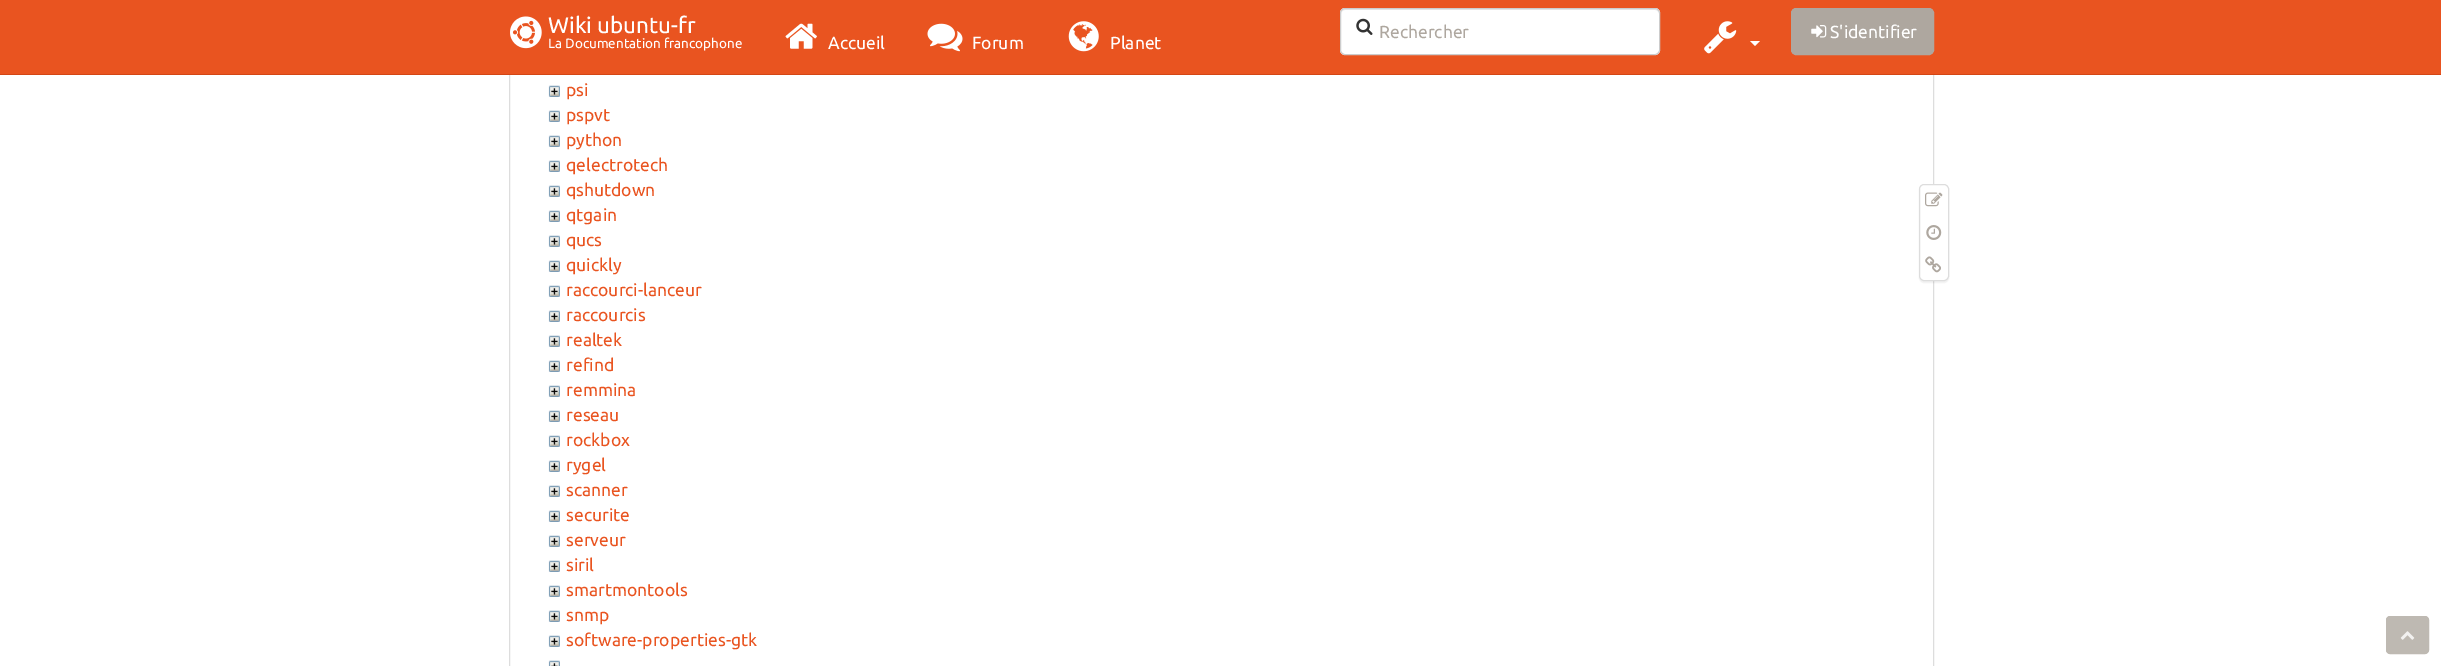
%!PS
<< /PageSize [2441 666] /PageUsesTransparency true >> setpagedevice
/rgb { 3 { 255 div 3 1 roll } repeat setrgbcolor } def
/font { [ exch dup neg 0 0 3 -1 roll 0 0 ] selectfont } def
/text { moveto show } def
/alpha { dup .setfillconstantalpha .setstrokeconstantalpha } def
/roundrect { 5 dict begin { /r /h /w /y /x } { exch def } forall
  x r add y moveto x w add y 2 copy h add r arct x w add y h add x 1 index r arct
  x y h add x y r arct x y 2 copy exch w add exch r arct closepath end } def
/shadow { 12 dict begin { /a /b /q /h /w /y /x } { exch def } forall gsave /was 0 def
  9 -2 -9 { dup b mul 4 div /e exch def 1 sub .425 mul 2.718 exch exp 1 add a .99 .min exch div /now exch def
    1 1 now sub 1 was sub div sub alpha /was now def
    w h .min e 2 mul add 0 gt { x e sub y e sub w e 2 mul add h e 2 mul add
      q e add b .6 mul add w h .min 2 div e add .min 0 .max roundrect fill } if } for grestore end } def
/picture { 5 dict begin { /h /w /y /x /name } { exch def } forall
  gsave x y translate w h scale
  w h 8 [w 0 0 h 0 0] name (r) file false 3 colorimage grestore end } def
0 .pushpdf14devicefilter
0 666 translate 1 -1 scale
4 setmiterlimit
255 255 255 rgb
0 0 2441 666 rectfill
221 221 221 rgb
509.5 -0.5 1424 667 rectstroke
233 84 32 rgb
0 0 2441 74 rectfill
211 70 21 rgb
0 74 2441 1 rectfill
(img_01.rgb) 510 16 32 33 picture
255 255 255 rgb
1340 8 320 47 5 roundrect fill
236 236 236 rgb
1345 10 moveto 310 0 rlineto 2 0 4 2 4 4 rcurveto 0 -1 rlineto 0 -2 -2 -4 -4 -4 rcurveto -310 0 rlineto -2 0 -4 2 -4 4 rcurveto 0 1 rlineto 0 -2 2 -4 4 -4 rcurveto closepath fill
204 204 204 rgb
1340.5 8.5 319 46 4.5 roundrect stroke
(img_02.rgb) 1356 18 17 17 picture
(img_03.rgb) 1704 21 33 33 picture
255 255 255 rgb
1750 41 moveto 10 0 rlineto -5 5 rlineto closepath fill
174 167 159 rgb
1791.5 8.5 142 46 4.5 roundrect gsave fill grestore
stroke
(img_04.rgb) 1811 25 16 13 picture
(img_05.rgb) 785 23 32 26 picture
(img_06.rgb) 927 23 36 29 picture
(img_07.rgb) 1068 21 31 31 picture
(img_08.rgb) 548 85 12 12 picture
(img_08.rgb) 548 110 12 12 picture
(img_08.rgb) 548 135 12 12 picture
(img_08.rgb) 548 160 12 12 picture
(img_08.rgb) 548 185 12 12 picture
(img_08.rgb) 548 210 12 12 picture
(img_08.rgb) 548 235 12 12 picture
(img_08.rgb) 548 260 12 12 picture
(img_08.rgb) 548 285 12 12 picture
(img_08.rgb) 548 310 12 12 picture
(img_08.rgb) 548 335 12 12 picture
(img_08.rgb) 548 360 12 12 picture
(img_08.rgb) 548 385 12 12 picture
(img_08.rgb) 548 410 12 12 picture
(img_08.rgb) 548 435 12 12 picture
(img_08.rgb) 548 460 12 12 picture
(img_08.rgb) 548 485 12 12 picture
(img_08.rgb) 548 510 12 12 picture
(img_08.rgb) 548 535 12 12 picture
(img_08.rgb) 548 560 12 12 picture
(img_08.rgb) 548 585 12 12 picture
(img_08.rgb) 548 610 12 12 picture
(img_08.rgb) 548 635 12 12 picture
(img_09.rgb) 548 660 12 6 picture
0 0 0 rgb
1919 185 30 98 5 0.5 0.05 shadow
255 255 255 rgb
1919.5 184.5 29 96 4.5 roundrect gsave fill grestore
221 221 221 rgb
stroke
(img_10.rgb) 1925 192 18 15 picture
(img_11.rgb) 1926 225 16 15 picture
(img_12.rgb) 1925 256 16 17 picture
190 185 178 rgb
2386.5 616.5 42 37 3.5 roundrect gsave fill grestore
stroke
(img_13.rgb) 2400 631 15 9 picture
/Ubuntu-Regular 22.5 font
255 255 255 rgb
(Wiki ubuntu-fr) 548 33 text
/Ubuntu-Regular 13.5 font
(La Documentation francophone) 548 48 text
/Ubuntu-Regular 17.5 font
174 167 159 rgb
(Rechercher) 1379 38 text
255 255 255 rgb
(S'identifier) 1830 38 text
(Accueil) 828 49 text
(Forum) 972 49 text
(Planet) 1110 49 text
233 84 32 rgb
(psi) 566 96 text
(pspvt) 566 121 text
(python) 566 146 text
(qelectrotech) 566 171 text
(qshutdown) 566 196 text
(qtgain) 566 221 text
(qucs) 566 246 text
(quickly) 566 271 text
(raccourci-lanceur) 566 296 text
(raccourcis) 566 321 text
(realtek) 566 346 text
(refind) 566 371 text
(remmina) 566 396 text
(reseau) 566 421 text
(rockbox) 566 446 text
(rygel) 566 471 text
(scanner) 566 496 text
(securite) 566 521 text
(serveur) 566 546 text
(siril) 566 571 text
(smartmontools) 566 596 text
(snmp) 566 621 text
(software-properties-gtk) 566 646 text
.poppdf14devicefilter showpage
